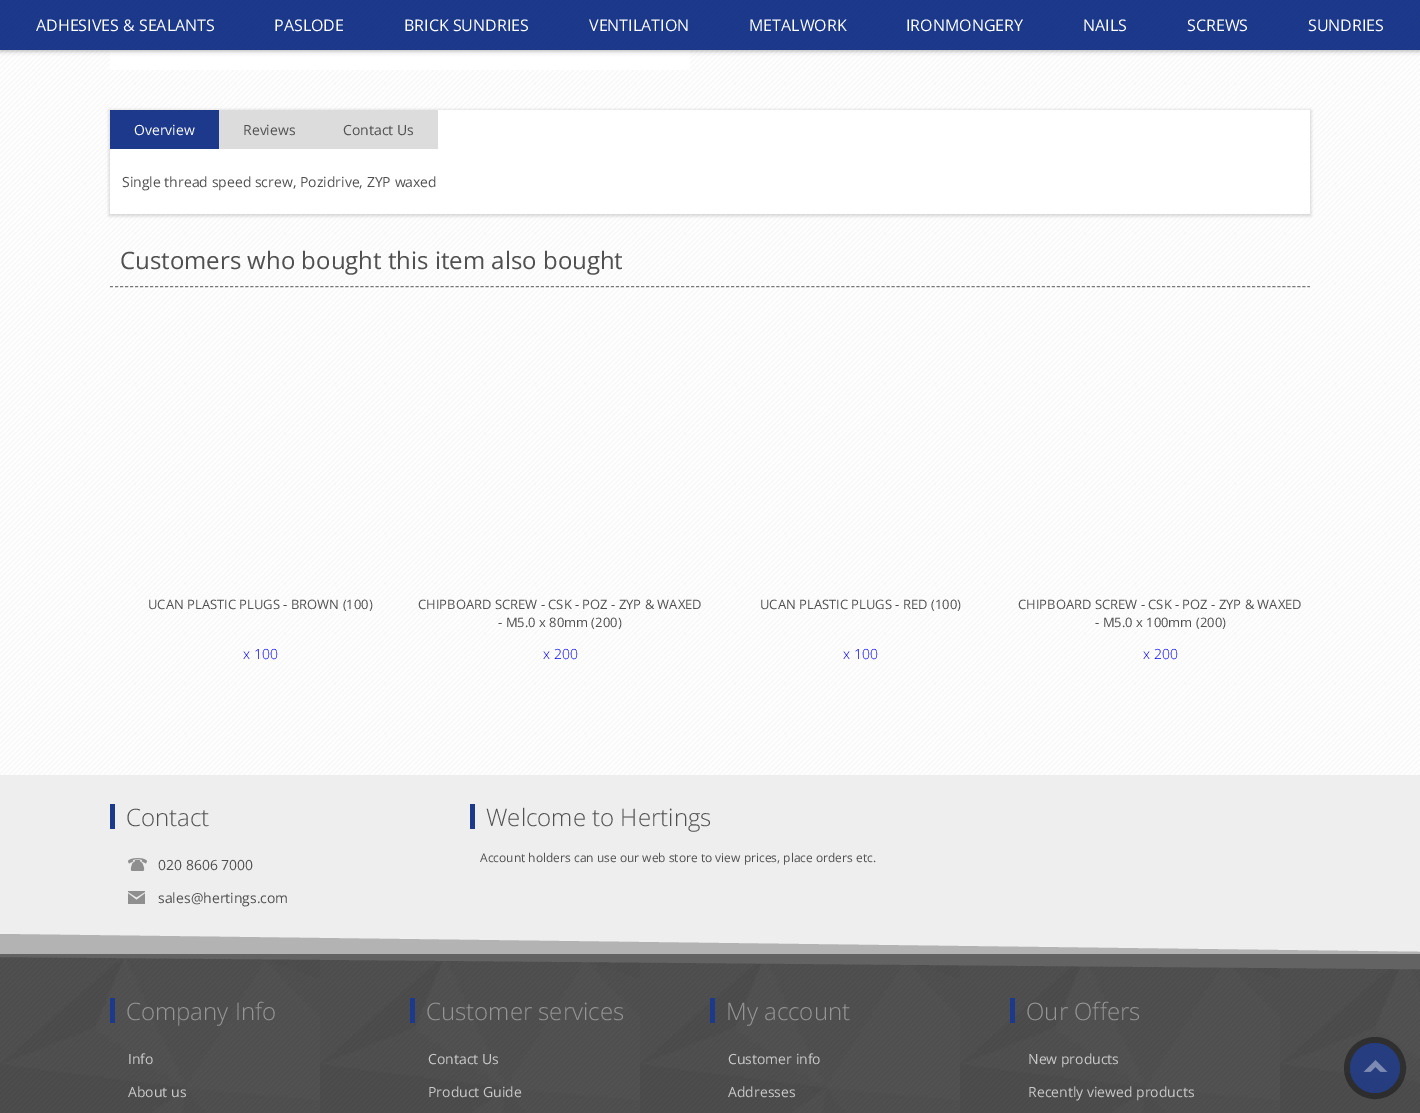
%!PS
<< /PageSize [1420 1113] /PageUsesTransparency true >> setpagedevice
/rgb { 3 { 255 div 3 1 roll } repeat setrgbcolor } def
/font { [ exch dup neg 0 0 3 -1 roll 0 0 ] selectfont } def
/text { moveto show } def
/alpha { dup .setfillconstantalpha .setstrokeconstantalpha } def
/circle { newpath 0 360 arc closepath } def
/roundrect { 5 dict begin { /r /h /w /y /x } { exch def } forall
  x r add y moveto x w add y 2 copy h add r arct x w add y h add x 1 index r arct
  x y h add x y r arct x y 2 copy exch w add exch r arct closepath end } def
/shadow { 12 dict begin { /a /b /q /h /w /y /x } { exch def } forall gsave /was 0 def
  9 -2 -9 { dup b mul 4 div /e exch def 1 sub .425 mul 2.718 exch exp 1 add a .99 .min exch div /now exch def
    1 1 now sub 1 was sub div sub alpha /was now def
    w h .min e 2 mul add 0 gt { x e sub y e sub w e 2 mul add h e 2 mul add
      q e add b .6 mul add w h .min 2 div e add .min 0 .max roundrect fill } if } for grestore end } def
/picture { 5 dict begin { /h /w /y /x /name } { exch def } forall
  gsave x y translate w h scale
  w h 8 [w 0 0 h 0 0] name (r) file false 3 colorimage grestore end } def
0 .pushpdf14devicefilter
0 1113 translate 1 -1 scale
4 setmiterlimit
255 255 255 rgb
0 0 1420 1113 rectfill
(img_01.rgb) 0 50 1420 725 picture
110 50 580 20 rectfill
0 0 0 rgb
0 1 1420 50 0 2.5 0.3 shadow
28 57 140 rgb
0 0 1420 50 rectfill
(img_02.rgb) 0 0 1420 50 picture
0 0 0 rgb
109 110 1202 106 0 1.5 0.15 shadow
255 255 255 rgb
438 110 872 40 rectfill
28 57 140 rgb
110 110 109 39 rectfill
255 255 255 rgb
110 149 328 1 rectfill
220 220 220 rgb
219 110 219 39 rectfill
255 255 255 rgb
110 150 1200 64 rectfill
121 121 121 rgb
[3 2.01] 0 setdash
110 286.5 moveto 1200 0 rlineto stroke
238 238 238 rgb
0 775 1420 177 rectfill
28 57 140 rgb
110 804 5 25 rectfill
(img_03.rgb) 128 858 19 13 picture
(img_04.rgb) 128 891 17 13 picture
470 804 5 25 rectfill
179 179 179 rgb
0 934 moveto 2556 32 rlineto 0 50 rlineto -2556 -32 rlineto closepath fill
(img_05.rgb) 0 957 1420 156 picture
gsave
0 954 1420 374 rectclip
99 99 99 rgb
0 907 moveto 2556 22 rlineto 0 50 rlineto -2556 -22 rlineto closepath fill
grestore
28 57 140 rgb
110 998 5 25 rectfill
410 998 5 25 rectfill
710 998 5 25 rectfill
1010 998 5 25 rectfill
0.4 alpha
0 0 0 rgb
6 setlinewidth
[] 0 setdash
1375 1068 28 circle stroke
0.8 alpha
28 57 140 rgb
1375 1068 25 circle fill
1 alpha
(img_06.rgb) 1363 1060 25 12 picture
/OpenSans-Regular 16 font
255 255 255 rgb
(ADHESIVES & SEALANTS) 36 31 text
(PASLODE) 274 31 text
(BRICK SUNDRIES) 404 31 text
(VENTILATION) 589 31 text
(METALWORK) 749 31 text
(IRONMONGERY) 906 31 text
(NAILS) 1083 31 text
(SCREWS) 1187 31 text
(SUNDRIES) 1308 31 text
/OpenSans-Regular 14 font
(Overview) 134 135 text
80 80 80 rgb
(Reviews) 243 135 text
(Contact Us) 343 135 text
(Single thread speed screw, Pozidrive, ZYP waxed) 122 187 text
/OpenSans-Regular 24 font
(Customers who bought this item also bought) 120 269 text
/OpenSans-Regular 13 font
(UCAN PLASTIC PLUGS - BROWN \(100\)) 148 609 text
/OpenSans-Light 14 font
0 0 255 rgb
(x 100) 243 659 text
/OpenSans-Regular 13 font
80 80 80 rgb
(CHIPBOARD SCREW - CSK - POZ - ZYP & WAXED) 418 609 text
(- M5.0 x 80mm \(200\)) 498 627 text
/OpenSans-Light 14 font
0 0 255 rgb
(x 200) 543 659 text
/OpenSans-Regular 13 font
80 80 80 rgb
(UCAN PLASTIC PLUGS - RED \(100\)) 760 609 text
/OpenSans-Light 14 font
0 0 255 rgb
(x 100) 843 659 text
/OpenSans-Regular 13 font
80 80 80 rgb
(CHIPBOARD SCREW - CSK - POZ - ZYP & WAXED) 1018 609 text
(- M5.0 x 100mm \(200\)) 1095 627 text
/OpenSans-Light 14 font
0 0 255 rgb
(x 200) 1143 659 text
/OpenSans-Light 24 font
80 80 80 rgb
(Contact) 126 826 text
/OpenSans-Regular 14 font
(020 8606 7000) 158 870 text
(sales@hertings.com) 158 903 text
/OpenSans-Light 24 font
(Welcome to Hertings) 486 826 text
/OpenSans-Regular 12 font
(Account holders can use our web store to view prices, place orders etc.) 480 862 text
/OpenSans-Light 24 font
150 150 150 rgb
(Company Info) 126 1020 text
/OpenSans-Regular 14 font
201 201 201 rgb
(Info) 128 1064 text
(About us) 128 1097 text
/OpenSans-Light 24 font
150 150 150 rgb
(Customer services) 426 1020 text
/OpenSans-Regular 14 font
201 201 201 rgb
(Contact Us) 428 1064 text
(Product Guide) 428 1097 text
/OpenSans-Light 24 font
150 150 150 rgb
(My account) 726 1020 text
/OpenSans-Regular 14 font
201 201 201 rgb
(Customer info) 728 1064 text
(Addresses) 728 1097 text
/OpenSans-Light 24 font
150 150 150 rgb
(Our Offers) 1026 1020 text
/OpenSans-Regular 14 font
201 201 201 rgb
(New products) 1028 1064 text
(Recently viewed products) 1028 1097 text
.poppdf14devicefilter showpage
